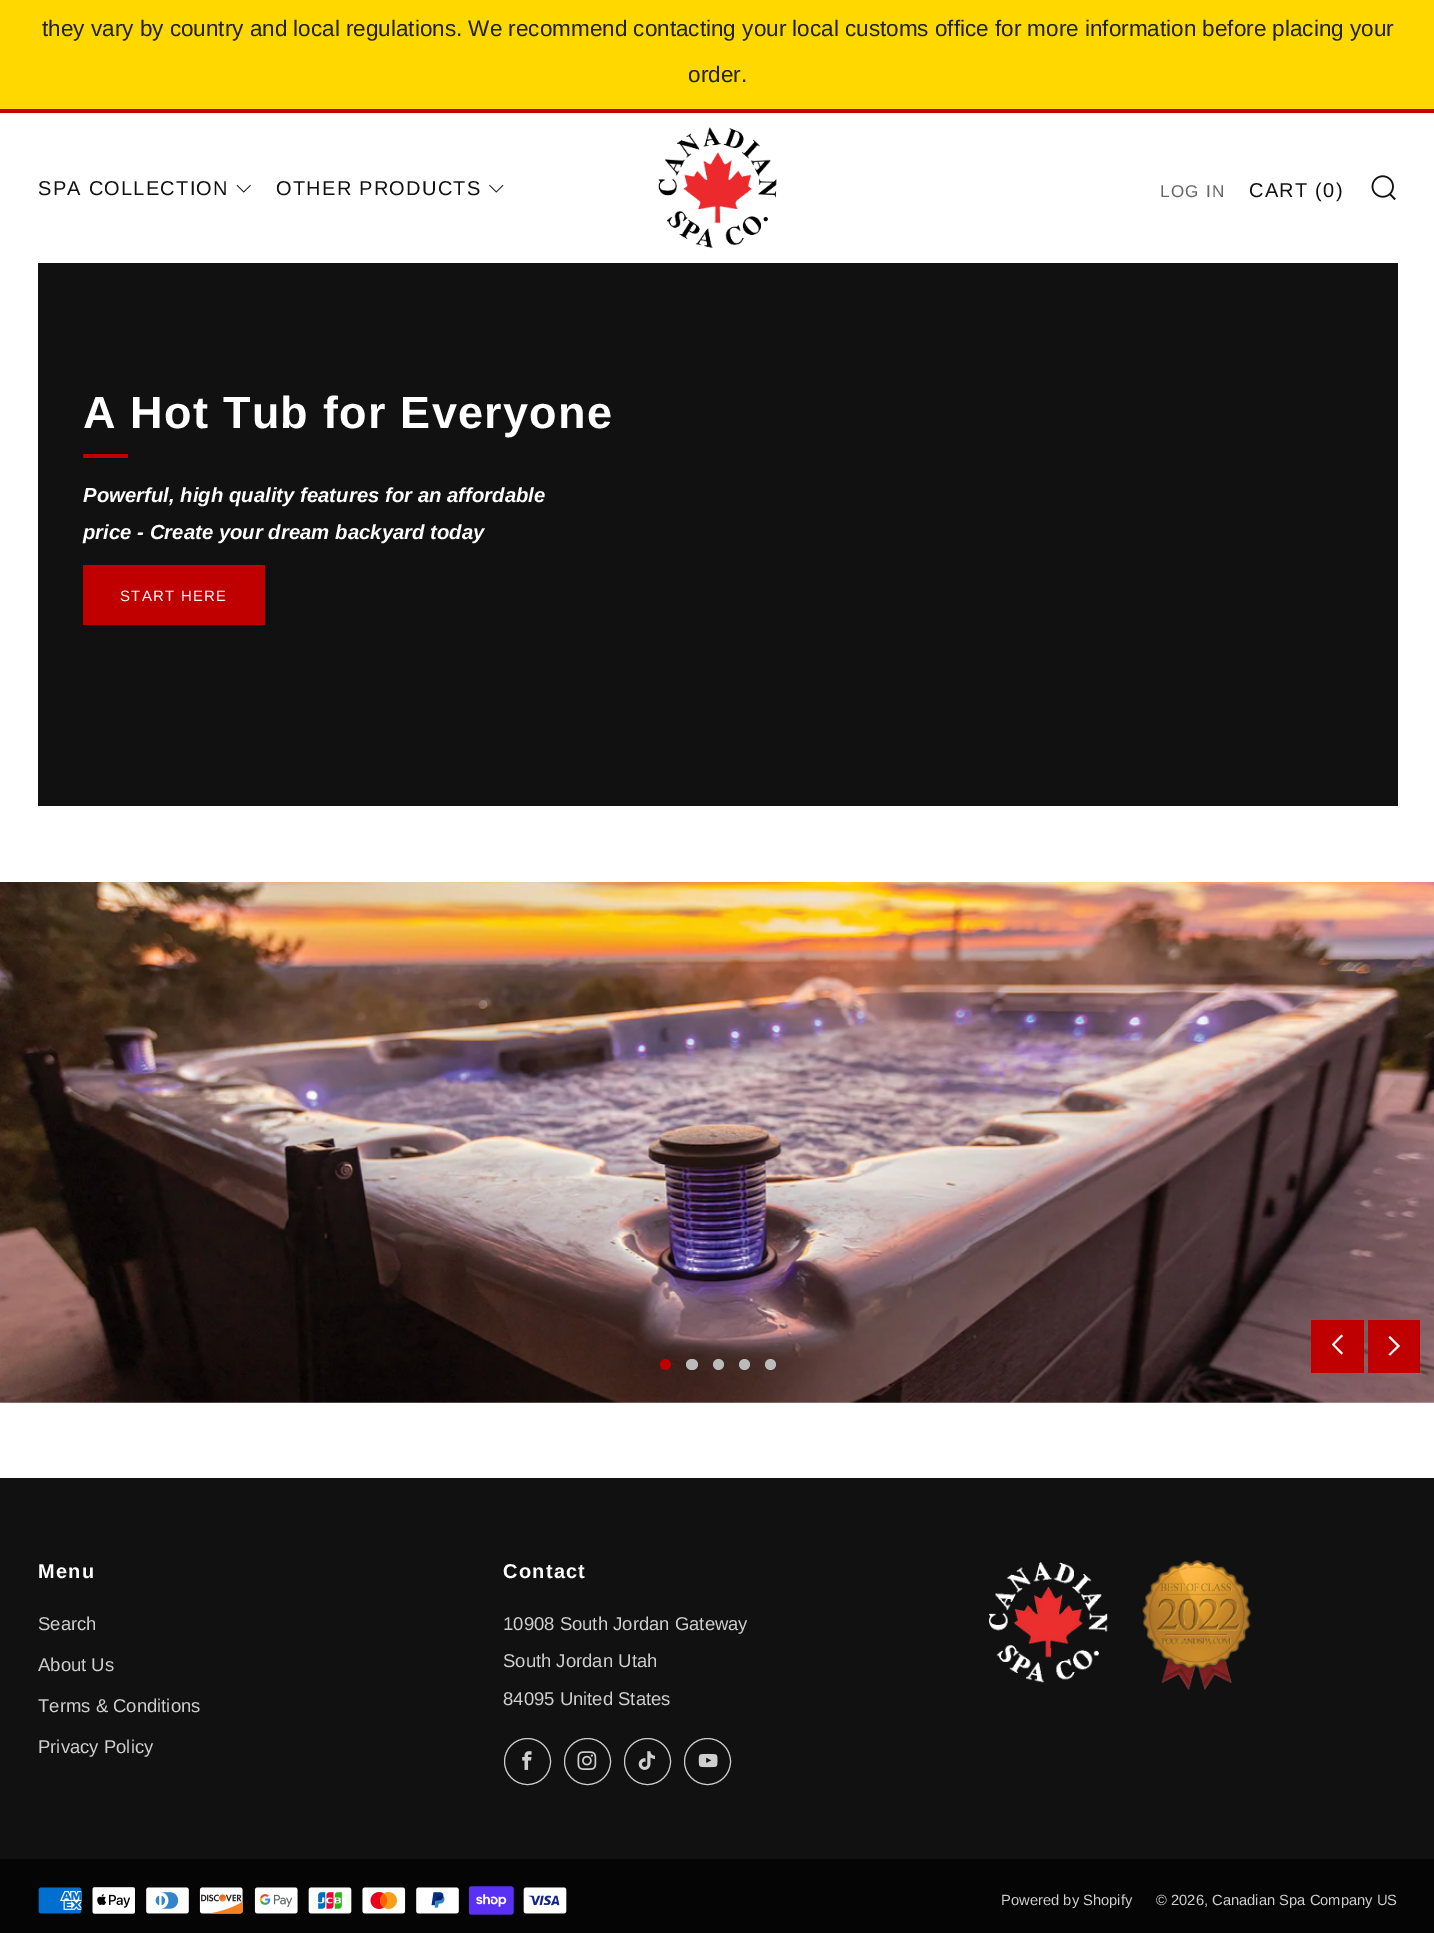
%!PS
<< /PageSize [1434 1933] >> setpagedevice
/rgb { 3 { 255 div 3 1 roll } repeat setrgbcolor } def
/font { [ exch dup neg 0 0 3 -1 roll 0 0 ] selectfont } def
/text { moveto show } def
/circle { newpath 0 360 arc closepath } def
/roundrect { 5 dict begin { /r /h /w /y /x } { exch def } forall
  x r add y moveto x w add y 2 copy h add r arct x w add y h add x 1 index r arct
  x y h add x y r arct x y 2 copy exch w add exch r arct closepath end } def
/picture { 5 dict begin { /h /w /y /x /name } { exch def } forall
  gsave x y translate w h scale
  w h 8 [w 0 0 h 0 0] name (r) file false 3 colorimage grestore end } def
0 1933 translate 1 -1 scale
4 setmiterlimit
255 255 255 rgb
0 0 1434 1933 rectfill
255 216 0 rgb
0 0 1434 109 rectfill
192 0 0 rgb
0 109 1434 4 rectfill
(img_01.rgb) 658 127 119 122 picture
(img_02.rgb) 236 184 15 9 picture
(img_03.rgb) 489 184 15 9 picture
(img_04.rgb) 1371 175 25 26 picture
17 17 17 rgb
38 263 1360 543 rectfill
192 0 0 rgb
83 454 45 4 rectfill
83 565 182 60 rectfill
(img_05.rgb) 0 882 1434 521 picture
665.5 1364.5 5.5 circle fill
187 187 187 rgb
686 1359 12 11 5.5 roundrect fill
718.5 1364.5 5.5 circle fill
744.5 1364.5 5.5 circle fill
770.5 1364.5 5.5 circle fill
192 0 0 rgb
1311 1320 53 53 rectfill
255 255 255 rgb
1343 1353 moveto -1.5 1.5 rlineto -9.5 -10 rlineto 9.5 -10 rlineto 1.5 1.5 rlineto -8.5 8.5 rlineto closepath fill
192 0 0 rgb
1368 1320 52 53 rectfill
255 255 255 rgb
1388.5 1354.5 moveto 1.5 1 rlineto 10 -9.5 rlineto -10 -10 rlineto -1.5 1.5 rlineto 8.5 8.5 rlineto closepath fill
18 17 17 rgb
0 1478 1434 381 rectfill
208 207 207 rgb
527.5 1761.5 23 circle stroke
(img_06.rgb) 522 1751 10 19 picture
587.5 1761.5 23 circle stroke
(img_07.rgb) 577 1751 20 19 picture
647.5 1761.5 23 circle stroke
(img_08.rgb) 638 1751 17 19 picture
707.5 1761.5 23 circle stroke
(img_09.rgb) 698 1753 20 15 picture
(img_10.rgb) 989 1560 263 130 picture
5 5 5 rgb
0 1859 1434 74 rectfill
(img_11.rgb) 38 1887 44 27 picture
(img_12.rgb) 92 1887 44 27 picture
(img_13.rgb) 146 1887 43 27 picture
(img_14.rgb) 199 1887 44 27 picture
(img_15.rgb) 254 1887 44 27 picture
(img_16.rgb) 308 1887 44 27 picture
(img_17.rgb) 362 1887 44 27 picture
(img_18.rgb) 416 1887 43 27 picture
(img_19.rgb) 469 1886 45 29 picture
(img_20.rgb) 523 1887 44 27 picture
/LiberationSans-Regular 22.5 font
33 33 33 rgb
(they vary by country and local regulations. We recommend contacting your local customs office for more information before placing your) 42 36 text
(order.) 688 82 text
/LiberationSans-Regular 20 font
17 17 17 rgb
38 195 moveto 1.25 0 (SPA COLLECTION) ashow
276 195 moveto 1.25 0 (OTHER PRODUCTS) ashow
/LiberationSans-Regular 17 font
102 102 102 rgb
1160 197 moveto 1.25 0 (LOG IN) ashow
/LiberationSans-Regular 20 font
17 17 17 rgb
1249 197 moveto 1.25 0 (CART \(0\)) ashow
/LiberationSans-Bold 45 font
255 255 255 rgb
83 428 moveto 1.25 0 (A Hot Tub for Everyone) ashow
/LiberationSans-BoldItalic 20.35 font
(Powerful, high quality features for an affordable) 83 502 text
(price - Create your dream backyard today) 83 539 text
/LiberationSans-Regular 15 font
120 601 moveto 1.25 0 (START HERE) ashow
/LiberationSans-Bold 20 font
38 1578 moveto 1.25 0 (Menu) ashow
/LiberationSans-Regular 18.5 font
208 207 207 rgb
(Search) 38 1630 text
(About Us) 38 1671 text
(Terms & Conditions) 38 1712 text
(Privacy Policy) 38 1753 text
/LiberationSans-Bold 20 font
255 255 255 rgb
503 1578 moveto 1.25 0 (Contact) ashow
/LiberationSans-Regular 18.5 font
208 207 207 rgb
(10908 South Jordan Gateway) 503 1630 text
(South Jordan Utah) 503 1667 text
(84095 United States) 503 1705 text
/LiberationSans-Regular 14.75 font
(Powered by Shopify) 1001 1905 text
(© 2026, Canadian Spa Company US) 1156 1905 text
showpage
